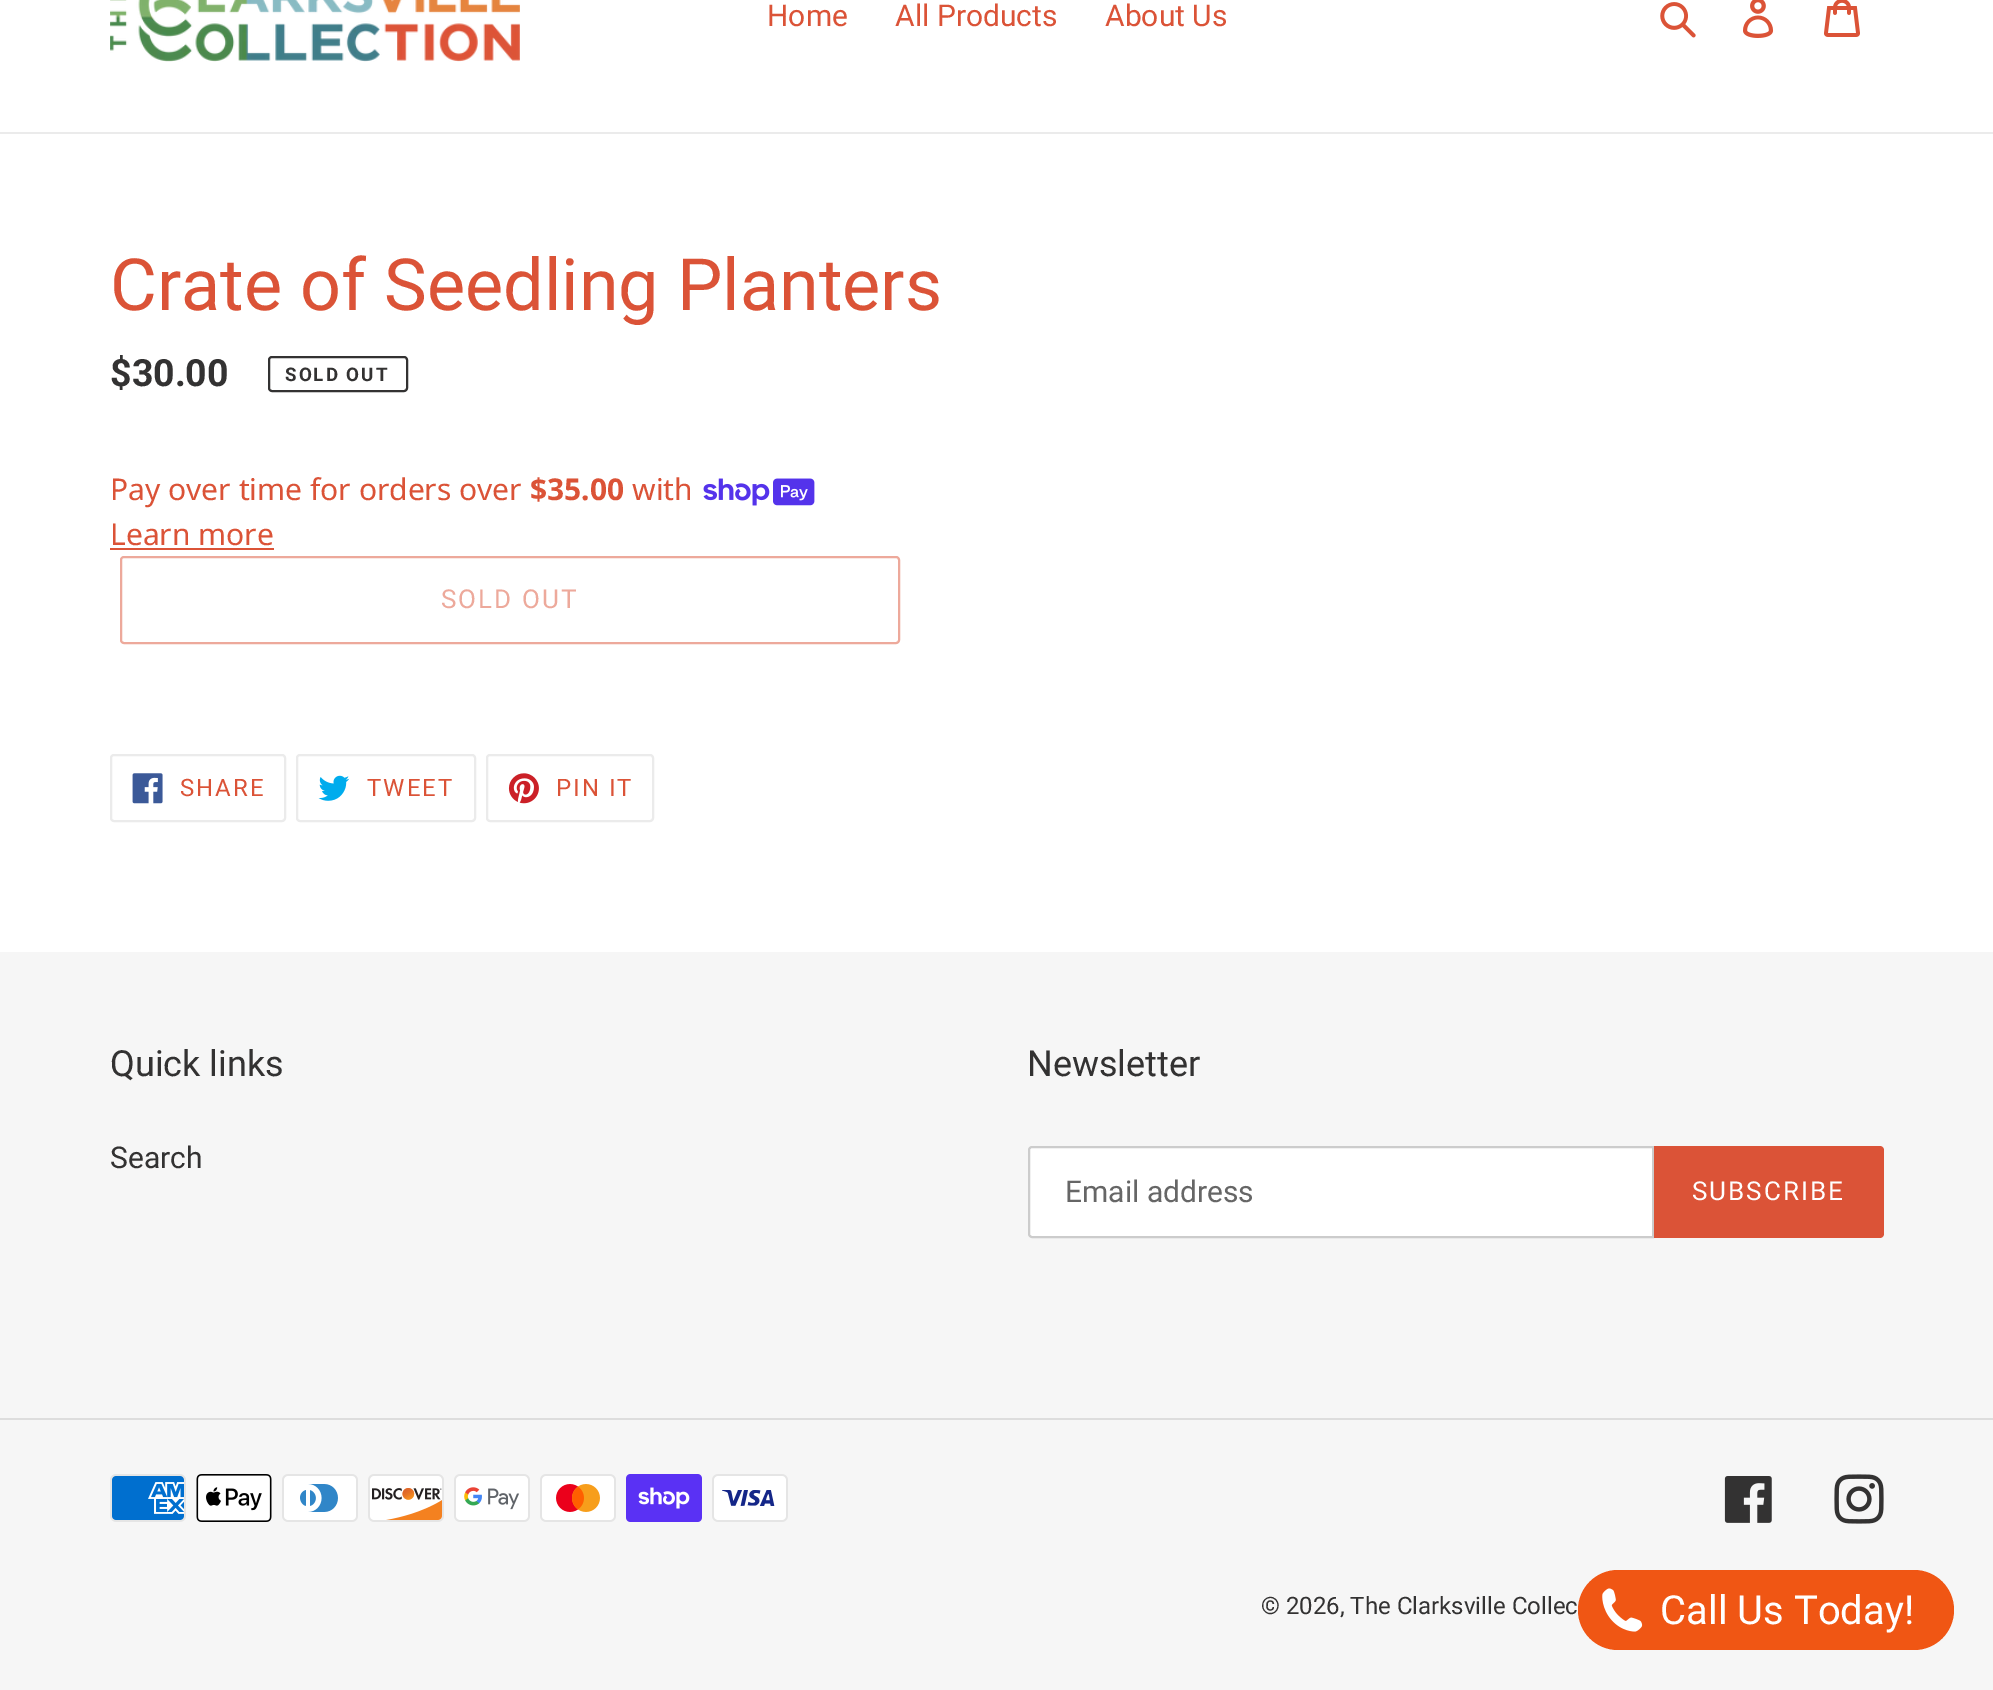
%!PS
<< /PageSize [1993 1690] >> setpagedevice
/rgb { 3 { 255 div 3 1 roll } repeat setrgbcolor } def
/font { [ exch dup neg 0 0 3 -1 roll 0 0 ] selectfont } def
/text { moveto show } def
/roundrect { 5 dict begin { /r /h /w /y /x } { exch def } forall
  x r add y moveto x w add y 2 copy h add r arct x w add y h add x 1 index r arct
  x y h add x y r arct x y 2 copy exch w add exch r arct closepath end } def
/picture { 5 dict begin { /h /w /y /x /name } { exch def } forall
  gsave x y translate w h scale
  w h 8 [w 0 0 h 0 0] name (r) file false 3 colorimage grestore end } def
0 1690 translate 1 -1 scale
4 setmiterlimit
255 255 255 rgb
0 0 1993 1690 rectfill
235 235 235 rgb
0 132 1993 2 rectfill
(img_01.rgb) 110 0 410 62 picture
(img_02.rgb) 1660 2 36 36 picture
(img_03.rgb) 1743 0 31 38 picture
(img_04.rgb) 1824 0 36 37 picture
51 50 50 rgb
2 setlinewidth
269 357 138 34 3 roundrect stroke
(img_05.rgb) 703 478 112 28 picture
219 83 55 rgb
110 548 164 2 rectfill
237 169 155 rgb
121 557 778 86 3 roundrect stroke
235 235 235 rgb
111 755 174 66 3 roundrect stroke
(img_06.rgb) 132 773 31 31 picture
297 755 178 66 3 roundrect stroke
(img_07.rgb) 318 775 32 26 picture
487 755 166 66 3 roundrect stroke
(img_08.rgb) 508 773 31 31 picture
246 246 246 rgb
0 952 1993 738 rectfill
255 255 255 rgb
1032 1147 moveto 621 0 rlineto 0 90 rlineto -621 0 rlineto -1.5 0 -3 -1.5 -3 -3 rcurveto 0 -84 rlineto 0 -1.5 1.5 -3 3 -3 rcurveto closepath gsave fill grestore
204 204 204 rgb
stroke
219 83 55 rgb
1654 1146 moveto 226 0 rlineto 2 0 4 2 4 4 rcurveto 0 84 rlineto 0 2 -2 4 -4 4 rcurveto -226 0 rlineto closepath fill
221 221 221 rgb
0 1418 1993 2 rectfill
(img_09.rgb) 110 1474 76 48 picture
(img_10.rgb) 196 1474 76 48 picture
(img_11.rgb) 282 1474 76 48 picture
(img_12.rgb) 368 1474 76 48 picture
(img_13.rgb) 454 1474 76 48 picture
(img_14.rgb) 540 1474 76 48 picture
(img_15.rgb) 626 1474 76 48 picture
(img_16.rgb) 712 1474 76 48 picture
(img_17.rgb) 1724 1476 48 47 picture
(img_18.rgb) 1834 1474 50 50 picture
240 86 20 rgb
1578 1570 376 80 40 roundrect fill
(img_19.rgb) 1602 1588 41 44 picture
/Roboto-Regular 30 font
219 83 55 rgb
(Home) 767 26 text
(All Products) 895 26 text
(About Us) 1105 26 text
/Roboto-Regular 72 font
(Crate of Seedling Planters) 110 310 text
/Roboto-Bold 37.5 font
51 50 50 rgb
($30.00) 110 386 text
/Roboto-Bold 18.75 font
285 381 moveto 2 0 (SOLD OUT) ashow
/NotoSans-Regular 30 font
219 83 55 rgb
(Pay over time for orders over) 110 500 text
/NotoSans-Bold 30 font
($35.00) 530 500 text
/NotoSans-Regular 30 font
(with) 632 500 text
(Learn more) 110 545 text
/Roboto-Regular 26 font
237 169 155 rgb
441 608 moveto 2 0 (SOLD OUT) ashow
/Roboto-Regular 24 font
219 83 55 rgb
180 796 moveto 2 0 (SHARE) ashow
367 796 moveto 2 0 (TWEET) ashow
556 796 moveto 2 0 (PIN IT) ashow
/Roboto-Regular 36 font
51 50 50 rgb
(Quick links) 110 1076 text
/Roboto-Regular 30 font
(Search) 110 1168 text
/Roboto-Regular 36 font
(Newsletter) 1027 1076 text
/Roboto-Regular 30 font
102 102 102 rgb
(Email address) 1065 1202 text
/Roboto-Regular 26 font
255 255 255 rgb
1692 1200 moveto 2 0 (SUBSCRIBE) ashow
/Roboto-Regular 24 font
51 50 50 rgb
(© 2026, The Clarksville Collec) 1261 1614 text
/Roboto-Regular 40 font
255 255 255 rgb
(Call Us Today!) 1660 1624 text
showpage
